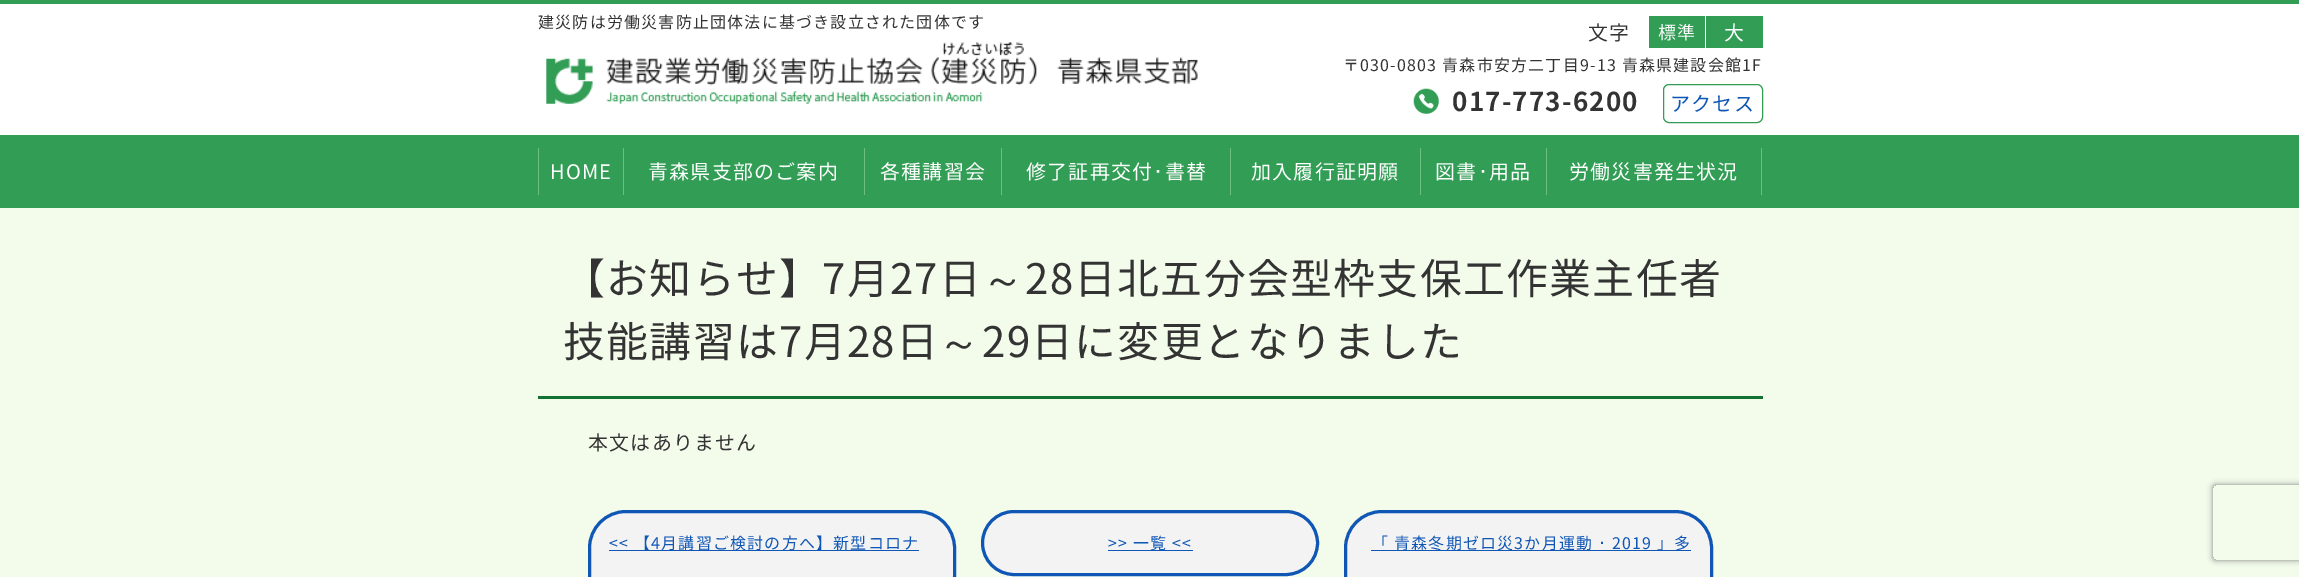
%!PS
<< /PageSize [2299 577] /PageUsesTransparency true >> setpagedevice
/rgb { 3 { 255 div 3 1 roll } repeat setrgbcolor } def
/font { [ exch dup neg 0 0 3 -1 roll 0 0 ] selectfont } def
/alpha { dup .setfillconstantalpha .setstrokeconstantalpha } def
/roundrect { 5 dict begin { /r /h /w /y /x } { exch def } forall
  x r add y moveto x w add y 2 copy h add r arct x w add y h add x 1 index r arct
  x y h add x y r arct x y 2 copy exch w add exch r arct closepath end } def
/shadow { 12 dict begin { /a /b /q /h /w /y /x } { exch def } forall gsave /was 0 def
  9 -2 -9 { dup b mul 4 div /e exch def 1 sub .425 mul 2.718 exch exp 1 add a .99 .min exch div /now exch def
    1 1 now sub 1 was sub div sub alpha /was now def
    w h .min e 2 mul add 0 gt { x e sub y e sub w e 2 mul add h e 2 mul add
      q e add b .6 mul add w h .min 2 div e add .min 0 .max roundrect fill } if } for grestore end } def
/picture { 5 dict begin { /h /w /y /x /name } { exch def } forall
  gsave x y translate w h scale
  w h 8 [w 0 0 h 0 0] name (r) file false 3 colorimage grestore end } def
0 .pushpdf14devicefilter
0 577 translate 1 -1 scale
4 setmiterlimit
243 252 235 rgb
0 0 2299 577 rectfill
50 157 85 rgb
0 0 2299 4 rectfill
255 255 255 rgb
0 4 2299 131 rectfill
(img_01.rgb) 546 42 652 62 picture
50 157 85 rgb
1649 16 56 32 rectfill
1706 16 57 32 rectfill
(img_02.rgb) 1413 88 26 26 picture
1663.5 84.5 99 38 5.5 roundrect stroke
0 135 2299 73 rectfill
108 192 123 rgb
538 148 1 47 rectfill
623 148 1 47 rectfill
864 148 1 47 rectfill
1001 148 1 47 rectfill
1230 148 1 47 rectfill
1420 148 1 47 rectfill
1761 148 1 47 rectfill
1546 148 1 47 rectfill
18 114 49 rgb
538 396 1225 3 rectfill
243 243 243 rgb
589.5 511.5 365 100 36.5 roundrect gsave fill grestore
15 86 181 rgb
3 setlinewidth
stroke
609 550 310 1 rectfill
243 243 243 rgb
982.5 511.5 335 63 31.5 roundrect gsave fill grestore
15 86 181 rgb
stroke
1108 550 85 1 rectfill
243 243 243 rgb
1345.5 511.5 366 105 36.5 roundrect gsave fill grestore
15 86 181 rgb
stroke
1371 550 320 1 rectfill
gsave
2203 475 moveto 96 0 rlineto 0 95 rlineto -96 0 rlineto closepath 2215.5 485 moveto 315 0 rlineto 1.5 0 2.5 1 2.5 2.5 rcurveto 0 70 rlineto 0 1.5 -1 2.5 -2.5 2.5 rcurveto -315 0 rlineto -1.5 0 -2.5 -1 -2.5 -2.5 rcurveto 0 -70 rlineto 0 -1.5 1 -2.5 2.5 -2.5 rcurveto closepath eoclip newpath
128 128 128 rgb
2213 485 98 75 2.5 3 1 shadow
grestore
/NotoSansJP-Regular 16 font
51 51 51 rgb
538 28 moveto 1.2 0 (建災防は労働災害防止団体法に基づき設立された団体です) ashow
/NotoSansJP-Regular 20 font
1588 40 moveto 1.2 0 (文字) ashow
/NotoSansJP-Regular 18 font
255 255 255 rgb
1658 39 moveto 1.2 0 (標準) ashow
/NotoSansJP-Regular 20 font
1724 40 moveto 1.2 0 (大) ashow
/NotoSansJP-Regular 16 font
51 51 51 rgb
1343 71 moveto 1.2 0 (〒030-0803 青森市安方二丁目9-13 青森県建設会館1F) ashow
/NotoSansJP-Bold 26 font
1452 111 moveto 1.2 0 (017-773-6200) ashow
/NotoSansJP-Regular 20 font
15 86 181 rgb
1670 111 moveto 1.2 0 (アクセス) ashow
255 255 255 rgb
550 179 moveto 1.2 0 (HOME) ashow
648 179 moveto 1.2 0 (青森県支部のご案内) ashow
880 179 moveto 1.2 0 (各種講習会) ashow
1026 179 moveto 1.2 0 (修了証再交付) ashow
/IPAPGothic-Regular 20 font
1153 179 moveto 1.2 0 (･) ashow
/NotoSansJP-Regular 20 font
1165 179 moveto 1.2 0 (書替) ashow
1251 179 moveto 1.2 0 (加入履行証明願) ashow
1435 179 moveto 1.2 0 (図書) ashow
/IPAPGothic-Regular 20 font
1478 179 moveto 1.2 0 (･) ashow
/NotoSansJP-Regular 20 font
1489 179 moveto 1.2 0 (用品) ashow
1569 179 moveto 1.2 0 (労働災害発生状況) ashow
/NotoSansJP-Regular 42 font
51 51 51 rgb
563 294 moveto 1.2 0 (【お知らせ】7月27日) ashow
/WenQuanYiZenHei-Medium 42 font
982 294 moveto 1.2 0 (～) ashow
/NotoSansJP-Regular 42 font
1025 294 moveto 1.2 0 (28日北五分会型枠支保工作業主任者) ashow
563 357 moveto 1.2 0 (技能講習は7月28日) ashow
/WenQuanYiZenHei-Medium 42 font
938 357 moveto 1.2 0 (～) ashow
/NotoSansJP-Regular 42 font
982 357 moveto 1.2 0 (29日に変更となりました) ashow
/NotoSansJP-Regular 20 font
588 450 moveto 1.2 0 (本文はありません) ashow
/NotoSansJP-Regular 16 font
15 86 181 rgb
609 549 moveto 1.2 0 (<< 【4月講習ご検討の方へ】新型コロナ) ashow
1108 549 moveto 1.2 0 (>> 一覧 <<) ashow
1372 549 moveto 1.2 0 (「 青森冬期ゼロ災3か月運動) ashow
/IPAPGothic-Regular 16 font
1598 549 moveto 1.2 0 (･) ashow
/NotoSansJP-Regular 16 font
1612 549 moveto 1.2 0 (2019 」多) ashow
.poppdf14devicefilter showpage
